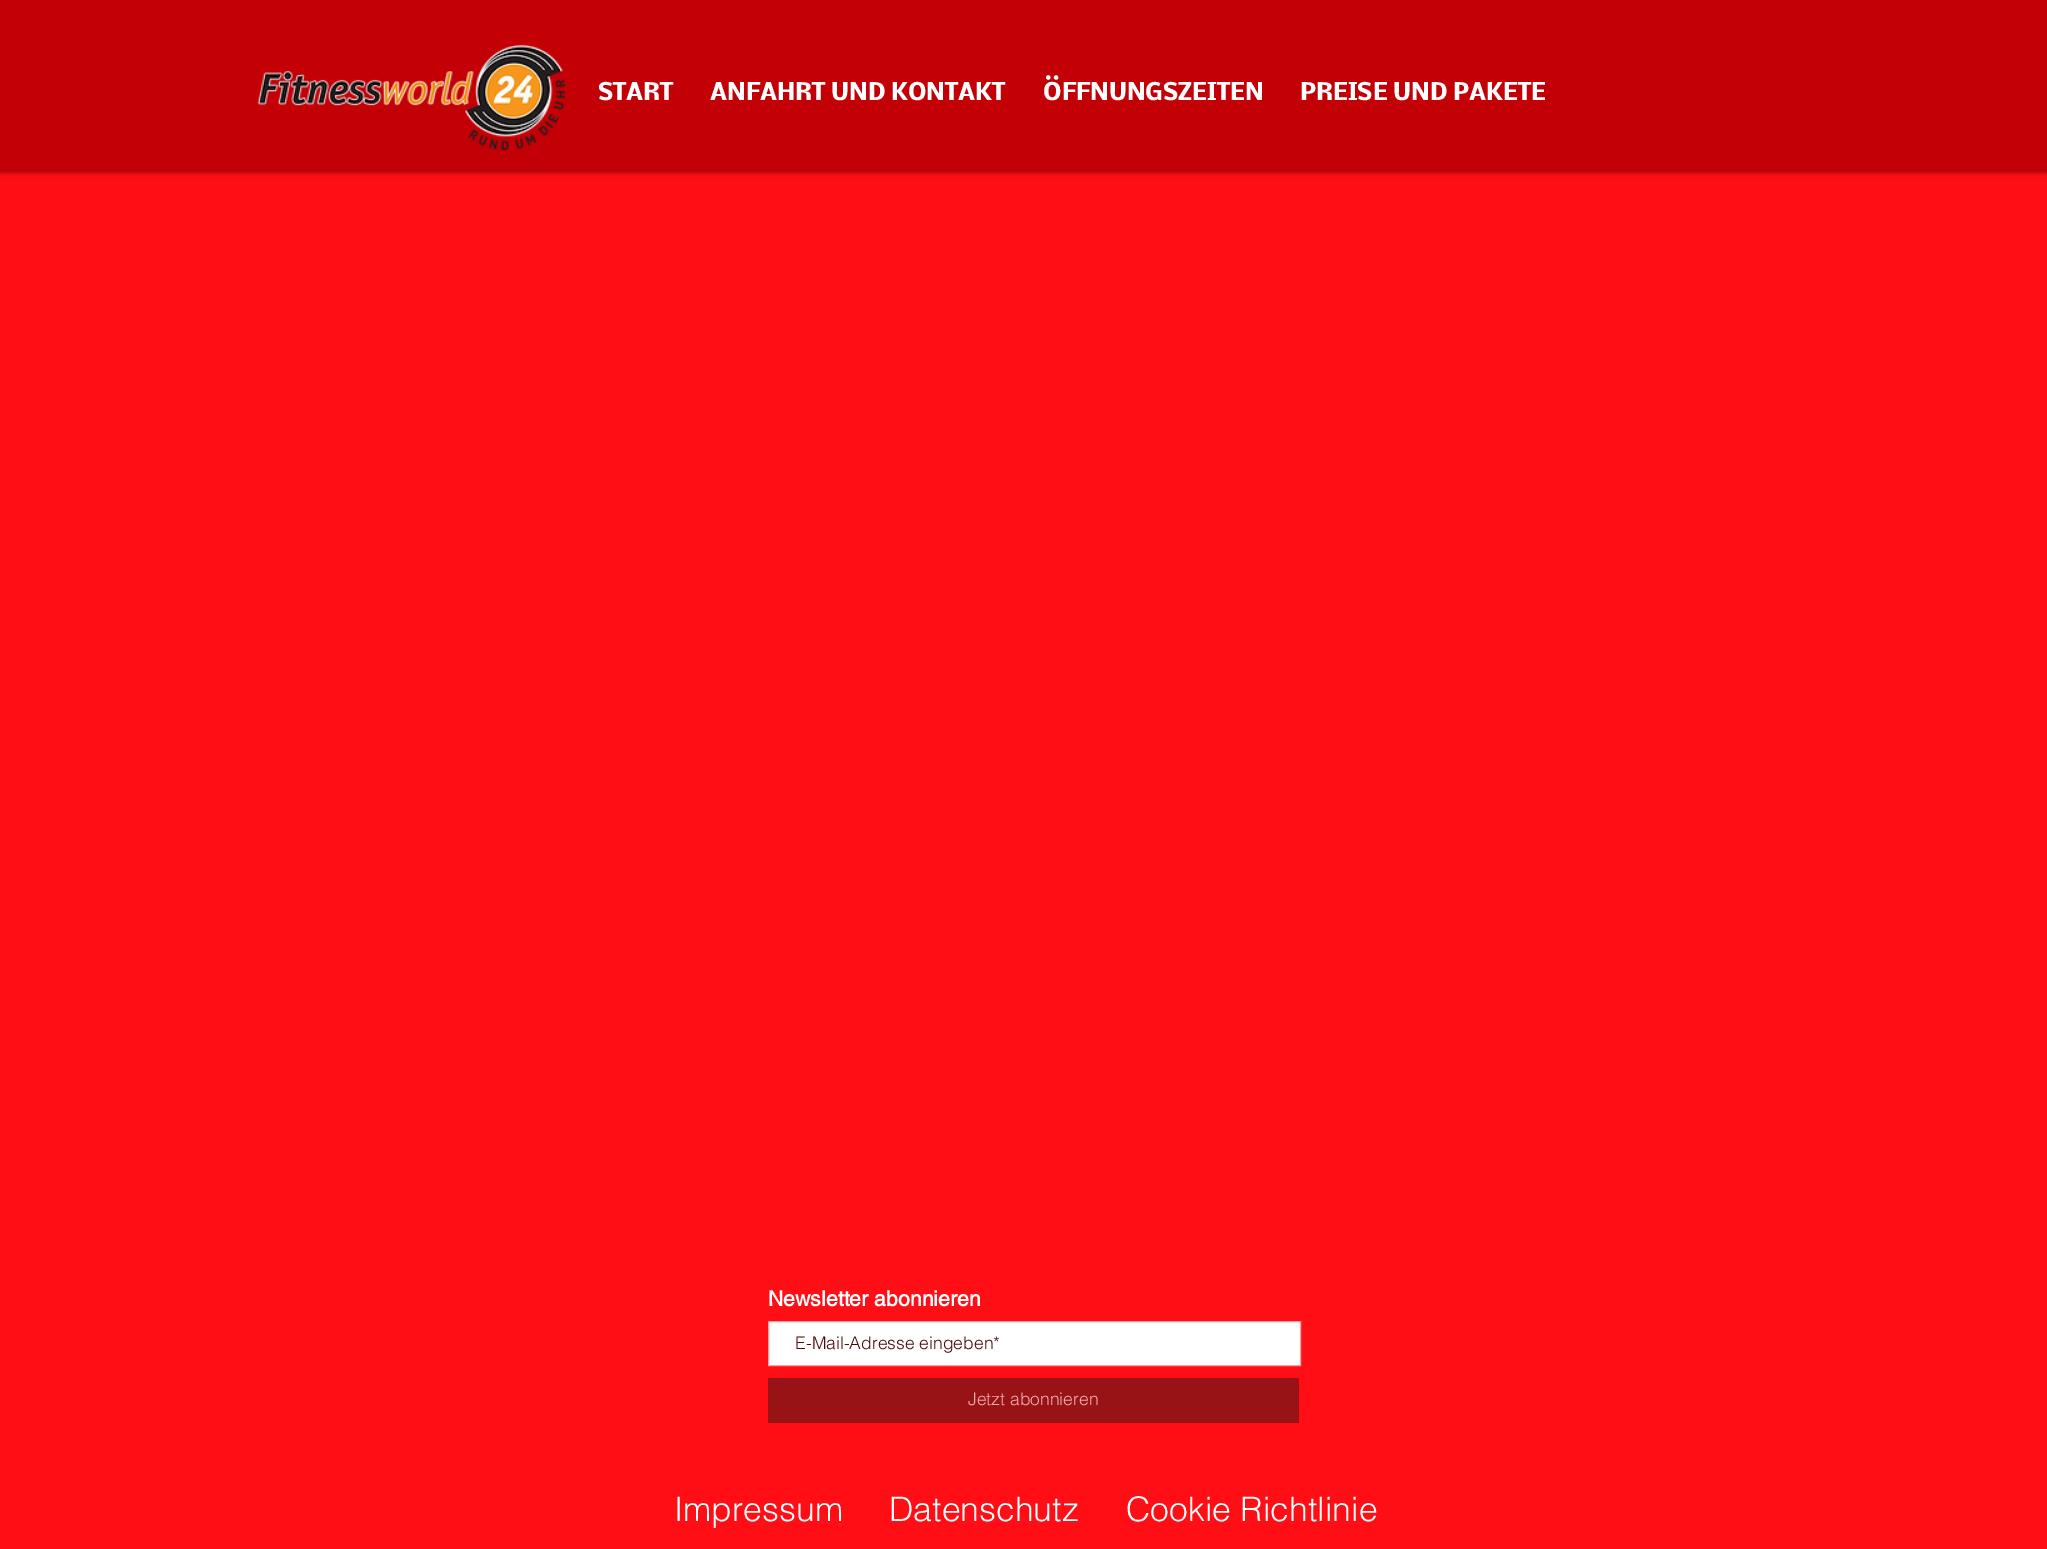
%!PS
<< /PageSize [2047 1549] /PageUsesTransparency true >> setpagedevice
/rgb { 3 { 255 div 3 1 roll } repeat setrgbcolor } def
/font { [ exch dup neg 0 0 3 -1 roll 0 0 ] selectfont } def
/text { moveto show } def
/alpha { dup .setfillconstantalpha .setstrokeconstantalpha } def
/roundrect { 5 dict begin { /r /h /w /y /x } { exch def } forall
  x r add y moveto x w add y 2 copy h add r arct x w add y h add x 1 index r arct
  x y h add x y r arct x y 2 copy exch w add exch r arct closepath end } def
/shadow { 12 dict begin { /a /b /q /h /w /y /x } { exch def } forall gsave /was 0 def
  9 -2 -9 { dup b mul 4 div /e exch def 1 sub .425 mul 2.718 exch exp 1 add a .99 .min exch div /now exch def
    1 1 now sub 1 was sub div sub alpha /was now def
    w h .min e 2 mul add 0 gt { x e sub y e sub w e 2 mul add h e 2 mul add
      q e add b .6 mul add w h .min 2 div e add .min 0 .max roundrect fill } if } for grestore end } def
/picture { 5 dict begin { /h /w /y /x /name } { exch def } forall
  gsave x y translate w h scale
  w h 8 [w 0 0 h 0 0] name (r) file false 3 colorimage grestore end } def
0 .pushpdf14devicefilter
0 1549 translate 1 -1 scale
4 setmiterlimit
255 15 21 rgb
0 0 2047 1549 rectfill
0 0 0 rgb
0 0 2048 171 0 3 0.7 shadow
194 0 5 rgb
0 0 2047 171 rectfill
(img_01.rgb) 257 44 308 106 picture
255 255 255 rgb
768.5 1321.5 moveto 532 0 rlineto 0 44 rlineto -532 0 rlineto closepath gsave fill grestore
255 154 157 rgb
stroke
151 19 22 rgb
768 1378 531 45 rectfill
/Nobile-Bold 22.5 font
255 255 255 rgb
(START) 598 100 text
(ANFAHRT UND KONTAKT) 710 100 text
(ÖFFNUNGSZEITEN) 1043 100 text
(PREISE UND PAKETE) 1300 100 text
/helvetica-Bold 21.25 font
(Newsletter abonnieren) 768 1306 text
/helvetica-Light 17.5 font
75 9 11 rgb
(E-Mail-Adresse eingeben*) 795 1349 text
245 174 175 rgb
(Jetzt abonnieren) 968 1405 text
/helvetica-Light 33.75 font
255 255 255 rgb
(Impressum) 674 1521 text
(Datenschutz) 889 1521 text
(Cookie Richtlinie) 1126 1521 text
.poppdf14devicefilter showpage
